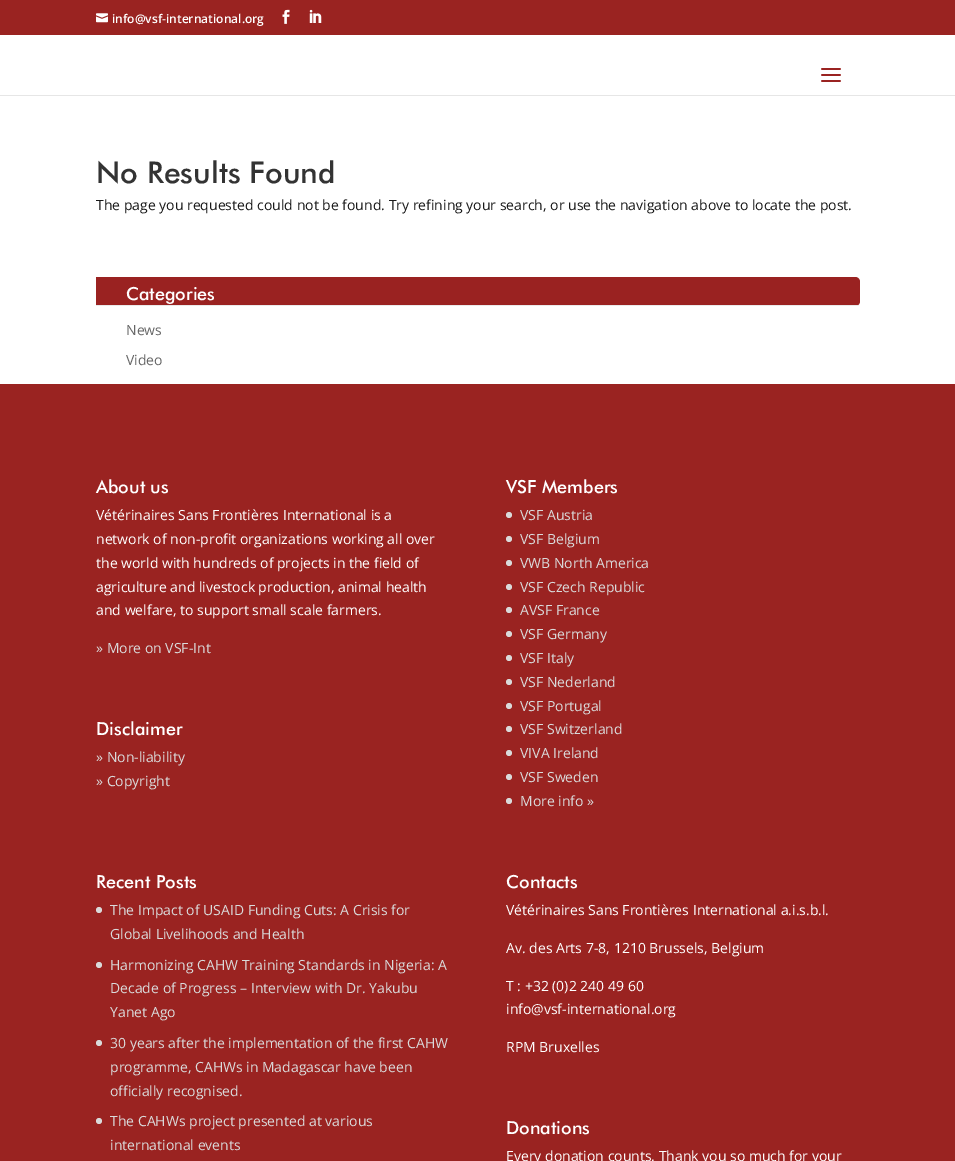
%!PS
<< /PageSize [955 1161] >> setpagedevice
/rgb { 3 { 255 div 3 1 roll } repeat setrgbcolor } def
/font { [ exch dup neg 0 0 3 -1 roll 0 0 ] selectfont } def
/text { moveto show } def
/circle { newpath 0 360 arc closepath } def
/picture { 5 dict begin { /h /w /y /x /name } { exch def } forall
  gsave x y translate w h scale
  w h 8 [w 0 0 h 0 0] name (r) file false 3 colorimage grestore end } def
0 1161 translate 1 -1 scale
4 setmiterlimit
154 35 33 rgb
0 0 955 1161 rectfill
(img_01.rgb) 96 13 12 10 picture
(img_02.rgb) 282 9 8 15 picture
(img_03.rgb) 309 9 13 14 picture
230 230 230 rgb
0 95 955 1 rectfill
255 255 255 rgb
0 35 955 60 rectfill
(img_04.rgb) 821 68 20 14 picture
0 96 955 288 rectfill
154 34 33 rgb
96 277 moveto 759 0 rlineto 3 0 5 2 5 5 rcurveto 0 19 rlineto 0 3 -2 5 -5 5 rcurveto -759 0 rlineto closepath fill
234 234 234 rgb
96 305 762 1 rectfill
218 218 218 rgb
509 515 3 circle fill
509 539 3 circle fill
509 563 3 circle fill
509 587 3 circle fill
509 610 3 circle fill
509 634 3 circle fill
509 658 3 circle fill
509 682 3 circle fill
509 706 3 circle fill
509 729 3 circle fill
509 753 3 circle fill
509 777 3 circle fill
509 801 3 circle fill
99 910 3 circle fill
99 965 3 circle fill
99 1043 3 circle fill
99 1121 3 circle fill
/OpenSans-SemiBold 12 font
255 255 255 rgb
(info@vsf-international.org) 112 23 text
/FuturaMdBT-Medium 30 font
51 51 51 rgb
(No Results Found) 96 183 text
/OpenSans-Regular 14 font
25 25 25 rgb
(The page you requested could not be found. Try refining your search, or use the navigation above to locate the post.) 96 210 text
/FuturaMdBT-Medium 18 font
255 255 255 rgb
(Categories) 126 300 text
/OpenSans-Regular 14 font
102 102 102 rgb
(News) 126 335 text
(Video) 126 365 text
/FuturaMdBT-Medium 18 font
255 255 255 rgb
(About us) 96 493 text
/OpenSans-Regular 14 font
(Vétérinaires Sans Frontières International is a) 96 520 text
(network of non-profit organizations working all over) 96 544 text
(the world with hundreds of projects in the field of) 96 568 text
(agriculture and livestock production, animal health) 96 592 text
(and welfare, to support small scale farmers.) 96 615 text
218 218 218 rgb
(» More on VSF-Int) 96 653 text
/FuturaMdBT-Medium 18 font
255 255 255 rgb
(Disclaimer) 96 735 text
/OpenSans-Regular 14 font
218 218 218 rgb
(» Non-liability) 96 762 text
(» Copyright) 96 786 text
/FuturaMdBT-Medium 18 font
255 255 255 rgb
(VSF Members) 506 493 text
/OpenSans-Regular 14 font
218 218 218 rgb
(VSF Austria) 520 520 text
(VSF Belgium) 520 544 text
(VWB North America) 520 568 text
(VSF Czech Republic) 520 592 text
(AVSF France) 520 615 text
(VSF Germany) 520 639 text
(VSF Italy) 520 663 text
(VSF Nederland) 520 687 text
(VSF Portugal) 520 711 text
(VSF Switzerland) 520 734 text
(VIVA Ireland) 520 758 text
(VSF Sweden) 520 782 text
(More info ») 520 806 text
/FuturaMdBT-Medium 18 font
255 255 255 rgb
(Recent Posts) 96 888 text
/OpenSans-Regular 14 font
218 218 218 rgb
(The Impact of USAID Funding Cuts: A Crisis for) 110 915 text
(Global Livelihoods and Health) 110 939 text
(Harmonizing CAHW Training Standards in Nigeria: A) 110 970 text
(Decade of Progress – Interview with Dr. Yakubu) 110 993 text
(Yanet Ago) 110 1017 text
(30 years after the implementation of the first CAHW) 110 1048 text
(programme, CAHWs in Madagascar have been) 110 1072 text
(officially recognised.) 110 1096 text
(The CAHWs project presented at various) 110 1126 text
(international events) 110 1150 text
/FuturaMdBT-Medium 18 font
255 255 255 rgb
(Contacts) 506 888 text
/OpenSans-Regular 14 font
(Vétérinaires Sans Frontières International a.i.s.b.l.) 506 915 text
(Av. des Arts 7-8, 1210 Brussels, Belgium) 506 953 text
(T : +32 \(0\)2 240 49 60) 506 991 text
(info@vsf-international.org) 506 1014 text
(RPM Bruxelles) 506 1052 text
/FuturaMdBT-Medium 18 font
(Donations) 506 1134 text
/OpenSans-Regular 14 font
(Every donation counts. Thank you so much for your) 506 1161 text
showpage
